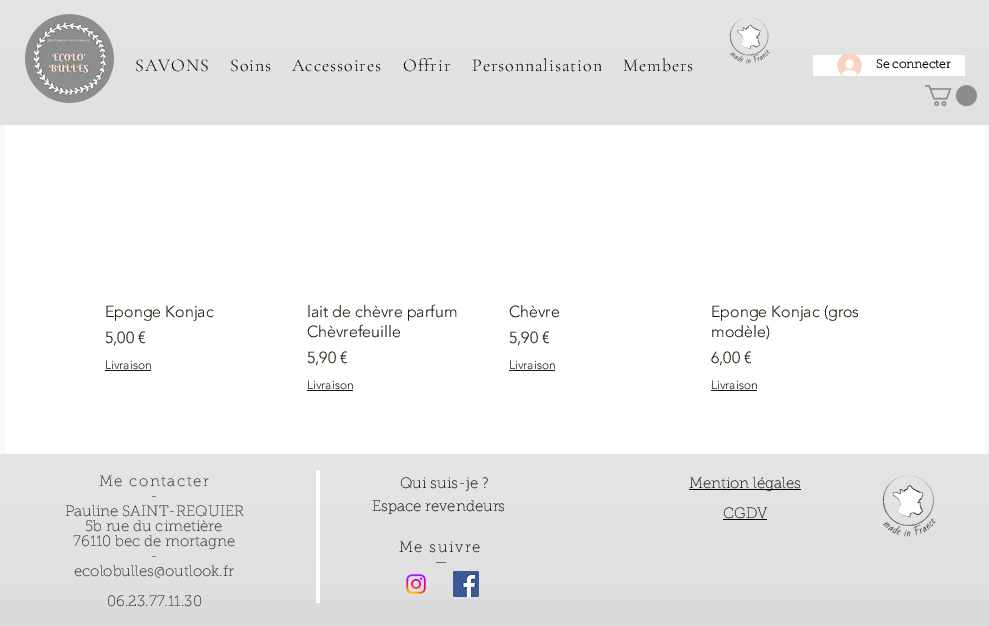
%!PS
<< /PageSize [989 626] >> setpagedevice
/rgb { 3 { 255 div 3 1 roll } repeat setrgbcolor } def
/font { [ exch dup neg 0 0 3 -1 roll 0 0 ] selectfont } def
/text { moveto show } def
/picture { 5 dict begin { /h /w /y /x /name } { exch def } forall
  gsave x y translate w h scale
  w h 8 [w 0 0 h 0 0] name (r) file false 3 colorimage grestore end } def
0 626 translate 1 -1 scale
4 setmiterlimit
248 248 248 rgb
0 0 989 626 rectfill
219 219 219 rgb
0 0 989 125 rectfill
(img_01.rgb) 0 0 989 125 picture
(img_02.rgb) 25 14 89 89 picture
(img_03.rgb) 729 17 41 47 picture
255 255 255 rgb
813 55 152 21 rectfill
(img_04.rgb) 837 53 25 25 picture
(img_05.rgb) 925 85 52 22 picture
5 125 980 329 rectfill
34 24 12 rgb
105 370 46 1 rectfill
307 390 46 1 rectfill
509 370 46 1 rectfill
711 390 46 1 rectfill
219 219 219 rgb
0 454 989 172 rectfill
(img_06.rgb) 0 454 989 145 picture
255 255 255 rgb
316 470 4 133 rectfill
0 0 0 rgb
689 489 112 1 rectfill
(img_07.rgb) 882 475 54 62 picture
723 519 44 1 rectfill
(img_08.rgb) 406 574 20 20 picture
(img_09.rgb) 453 571 26 26 picture
/CormorantGaramond-Light 18 font
135 71 moveto 0.9 0 (SAVONS) ashow
230 71 moveto 0.9 0 (Soins) ashow
292 71 moveto 0.9 0 (Accessoires) ashow
403 71 moveto 0.9 0 (Offrir) ashow
472 71 moveto 0.9 0 (Personnalisation) ashow
623 71 moveto 0.9 0 (Members) ashow
/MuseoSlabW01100-Bold 12 font
(Se connecter) 876 68 text
/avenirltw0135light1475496-Light 16 font
34 24 12 rgb
(Eponge Konjac) 105 317 text
(5,00 €) 105 343 text
/avenirltw0135light1475496-Light 12 font
(Livraison) 105 369 text
/avenirltw0135light1475496-Light 16 font
(lait de chèvre parfum) 307 317 text
(Chèvrefeuille) 307 337 text
(5,90 €) 307 363 text
/avenirltw0135light1475496-Light 12 font
(Livraison) 307 389 text
/avenirltw0135light1475496-Light 16 font
(Chèvre) 509 317 text
(5,90 €) 509 343 text
/avenirltw0135light1475496-Light 12 font
(Livraison) 509 369 text
/avenirltw0135light1475496-Light 16 font
(Eponge Konjac \(gros) 711 317 text
(modèle\)) 711 337 text
(6,00 €) 711 363 text
/avenirltw0135light1475496-Light 12 font
(Livraison) 711 389 text
/MuseoSlabW01100-Thin 15 font
50 33 33 rgb
99 486 moveto 1.5 0 (Me contacter) ashow
(-) 150 501 text
(Pauline SAINT-REQUIER) 65 516 text
(5b rue du cimetière) 85 531 text
(76110 bec de mortagne) 73 546 text
(-) 150 561 text
(ecolobulles@outlook.fr) 74 576 text
(06.23.77.11.30) 107 606 text
0 0 0 rgb
(Qui suis-je ?) 400 488 text
(Mention légales) 689 488 text
(Espace revendeurs) 372 511 text
(CGDV) 723 518 text
399 552 moveto 1.5 0 (Me suivre) ashow
(—) 434 567 text
showpage
